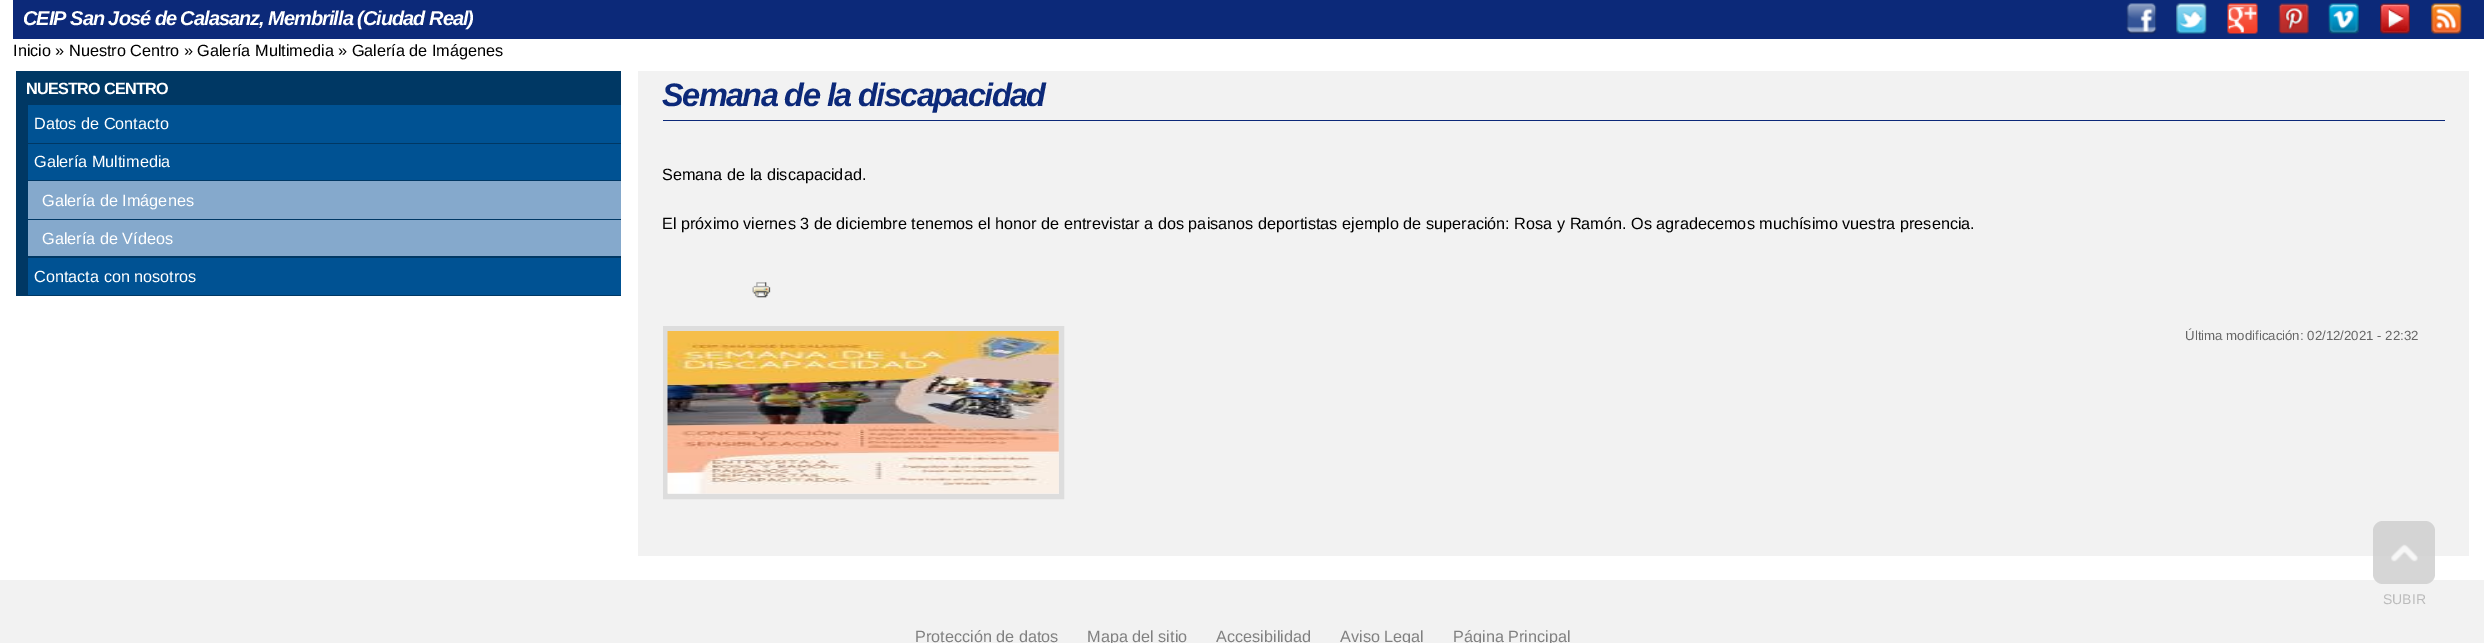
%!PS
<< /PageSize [2484 643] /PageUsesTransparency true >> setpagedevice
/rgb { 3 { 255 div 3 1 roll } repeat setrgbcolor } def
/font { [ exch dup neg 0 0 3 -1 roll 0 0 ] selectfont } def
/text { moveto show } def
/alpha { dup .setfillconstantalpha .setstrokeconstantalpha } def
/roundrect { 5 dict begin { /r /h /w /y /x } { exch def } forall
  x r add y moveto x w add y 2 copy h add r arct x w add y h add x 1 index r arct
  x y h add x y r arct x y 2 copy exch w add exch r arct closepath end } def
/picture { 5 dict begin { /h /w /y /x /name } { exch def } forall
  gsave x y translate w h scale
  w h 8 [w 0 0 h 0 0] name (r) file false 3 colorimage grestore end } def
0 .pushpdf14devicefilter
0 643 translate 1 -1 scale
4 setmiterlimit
255 255 255 rgb
0 0 2484 643 rectfill
12 41 121 rgb
13 0 2471 39 rectfill
(img_01.rgb) 2126 3 31 31 picture
(img_02.rgb) 2176 3 31 31 picture
(img_03.rgb) 2227 3 31 31 picture
(img_04.rgb) 2278 3 31 31 picture
(img_05.rgb) 2328 3 31 31 picture
(img_06.rgb) 2380 3 30 31 picture
(img_07.rgb) 2431 3 31 31 picture
0 56 100 rgb
16 71 605 225 rectfill
0 82 147 rgb
28 105 593 38 rectfill
28 144 593 36 rectfill
133 169 204 rgb
28 181 593 38 rectfill
28 220 593 36 rectfill
0 82 147 rgb
28 258 593 37 rectfill
242 242 242 rgb
638 71 1831 485 rectfill
12 41 121 rgb
663 120 1782 1 rectfill
(img_08.rgb) 752 282 19 16 picture
221 221 221 rgb
5 setlinewidth
665.5 328.5 396 168 rectstroke
(img_09.rgb) 667 331 392 163 picture
242 242 242 rgb
0 580 2484 63 rectfill
0.8 alpha
204 204 204 rgb
2373 521 62 63 10 roundrect fill
1 alpha
(img_10.rgb) 2391 544 27 18 picture
/LiberationSans-BoldItalic 20 font
255 255 255 rgb
23 25 moveto -1 0 (CEIP San José de Calasanz, Membrilla \(Ciudad Real\)) ashow
/LiberationSans-Regular 16.25 font
0 0 0 rgb
(Inicio » Nuestro Centro » Galería Multimedia » Galería de Imágenes) 13 56 text
/LiberationSans-Bold 16.25 font
255 255 255 rgb
26 94 moveto -0.75 0 (NUESTRO CENTRO) ashow
/LiberationSans-Regular 16.25 font
(Datos de Contacto) 34 129 text
(Galería Multimedia) 34 167 text
(Galería de Imágenes) 42 206 text
(Galería de Vídeos) 42 244 text
(Contacta con nosotros) 34 282 text
/LiberationSans-BoldItalic 32.5 font
12 41 121 rgb
662 106 moveto -1.6 0 (Semana de la discapacidad) ashow
/LiberationSans-Regular 16.25 font
0 0 0 rgb
(Semana de la discapacidad.) 662 180 text
(El próximo viernes 3 de diciembre tenemos el honor de entrevistar a dos paisanos deportistas ejemplo de superación: Rosa y Ramón. Os agradecemos muchísimo vuestra presencia.) 662 229 text
/LiberationSans-Regular 13.25 font
102 102 102 rgb
(Última modificación: 02/12/2021 - 22:32) 2185 340 text
/LiberationSans-Regular 16.25 font
128 128 128 rgb
(Protección de datos) 915 642 text
(Mapa del sitio) 1087 642 text
(Accesibilidad) 1216 642 text
(Aviso Legal) 1340 642 text
(Página Principal) 1453 642 text
/LiberationSans-Regular 14 font
187 187 187 rgb
(SUBIR) 2383 604 text
.poppdf14devicefilter showpage
